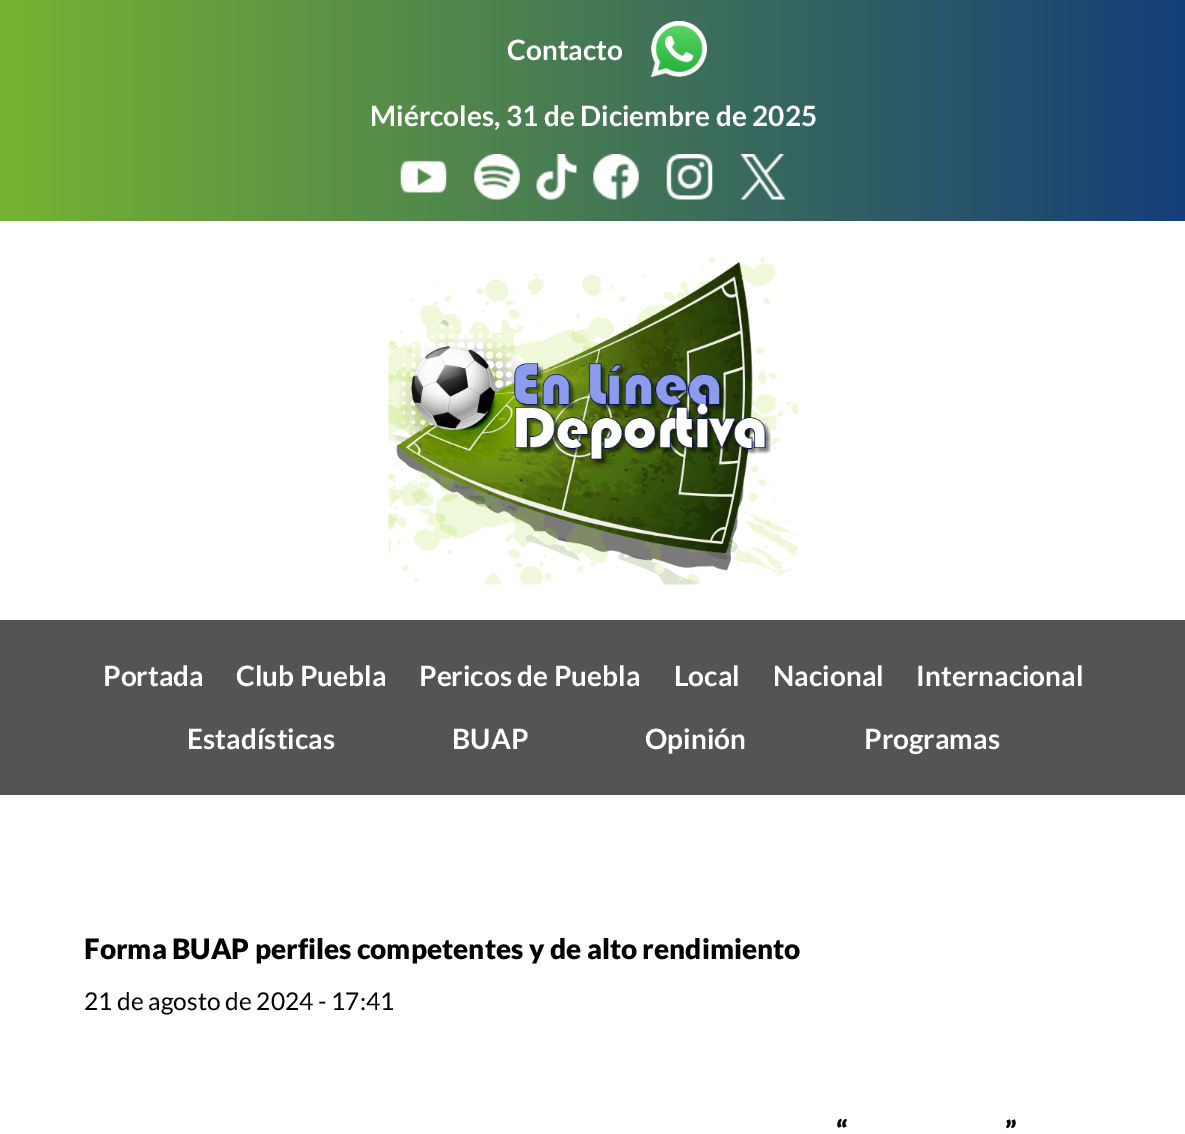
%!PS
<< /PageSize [1185 1134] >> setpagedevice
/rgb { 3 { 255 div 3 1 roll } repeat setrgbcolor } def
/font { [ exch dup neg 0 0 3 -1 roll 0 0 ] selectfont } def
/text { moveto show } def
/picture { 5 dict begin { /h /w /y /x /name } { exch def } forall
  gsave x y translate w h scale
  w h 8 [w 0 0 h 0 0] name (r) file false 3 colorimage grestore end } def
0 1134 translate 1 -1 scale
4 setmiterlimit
255 255 255 rgb
0 0 1185 1134 rectfill
gsave 0 0 moveto 1185 0 rlineto 0 221 rlineto -1185 0 rlineto closepath clip newpath
<< /ShadingType 2 /ColorSpace /DeviceRGB /Coords [0 110 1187 110] /Extend [true true] /Function << /FunctionType 2 /Domain [0 1] /C0 [0.463 0.702 0.192] /C1 [0.078 0.243 0.471] /N 1 >> >> shfill grestore
(img_01.rgb) 651 21 56 56 picture
(img_02.rgb) 400 160 47 33 picture
(img_03.rgb) 474 154 46 46 picture
(img_04.rgb) 536 154 42 46 picture
(img_05.rgb) 593 154 46 46 picture
(img_06.rgb) 666 154 47 46 picture
(img_07.rgb) 740 154 46 46 picture
(img_08.rgb) 388 256 410 329 picture
84 84 84 rgb
0 620 1185 175 rectfill
/Lato-Bold 28 font
255 255 255 rgb
(Contacto) 507 60 text
(Miércoles, 31 de Diciembre de 2025) 370 126 text
(Portada) 103 686 text
(Club Puebla) 236 686 text
(Pericos de Puebla) 419 686 text
(Local) 674 686 text
(Nacional) 773 686 text
(Internacional) 916 686 text
(Estadísticas) 187 749 text
(BUAP) 452 749 text
(Opinión) 645 749 text
(Programas) 864 749 text
/Lato-Black 28 font
0 0 0 rgb
(Forma BUAP perfiles competentes y de alto rendimiento) 84 959 text
/Lato-Regular 24.5 font
(21 de agosto de 2024 - 17:41) 84 1010 text
/Lato-Black 28 font
(“) 836 1141 text
(”) 1005 1141 text
showpage
